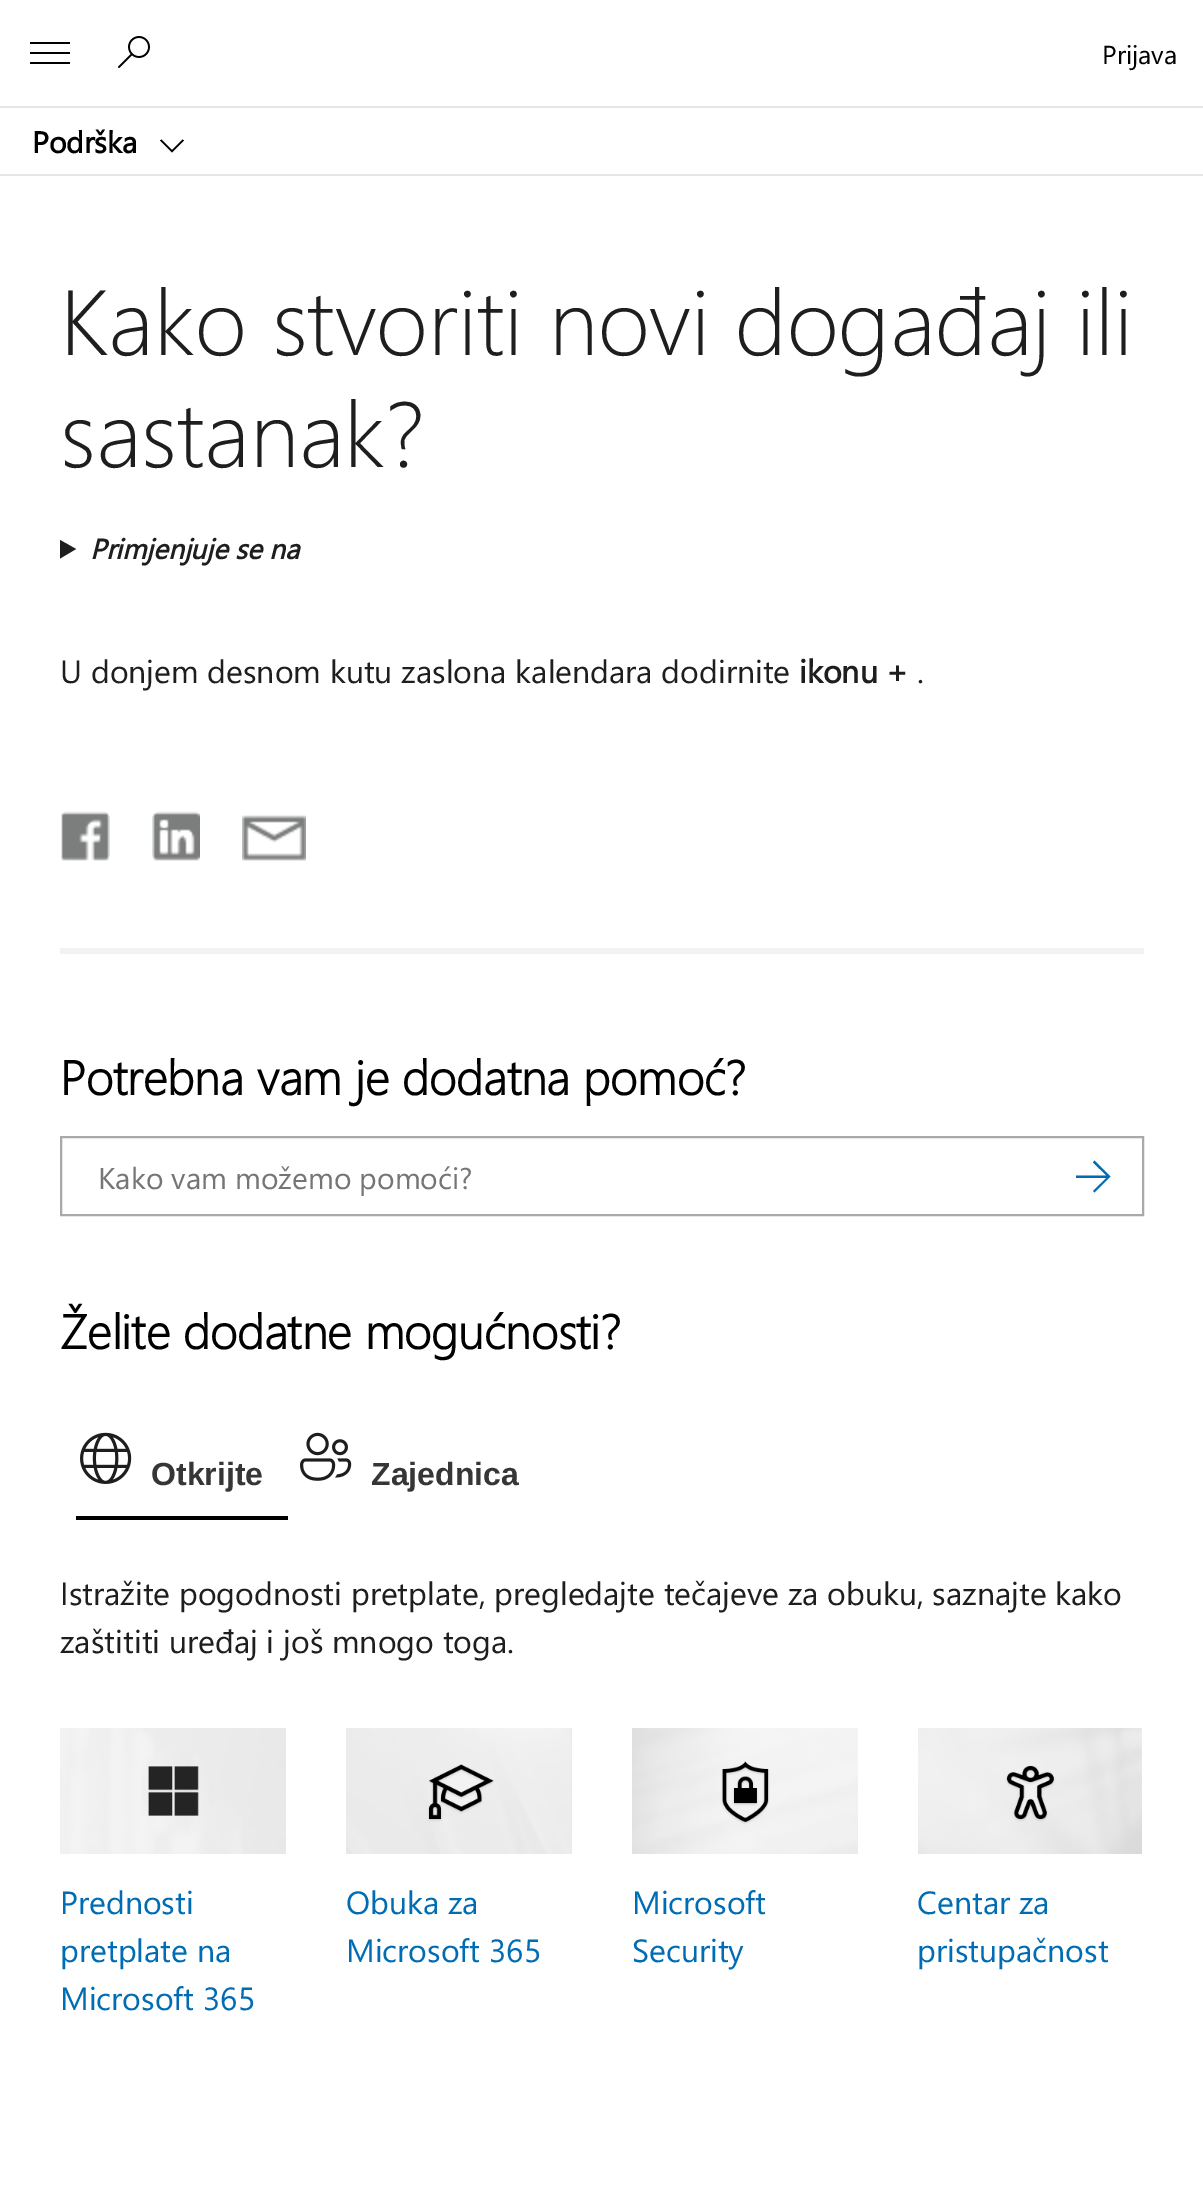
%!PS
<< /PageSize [1203 2204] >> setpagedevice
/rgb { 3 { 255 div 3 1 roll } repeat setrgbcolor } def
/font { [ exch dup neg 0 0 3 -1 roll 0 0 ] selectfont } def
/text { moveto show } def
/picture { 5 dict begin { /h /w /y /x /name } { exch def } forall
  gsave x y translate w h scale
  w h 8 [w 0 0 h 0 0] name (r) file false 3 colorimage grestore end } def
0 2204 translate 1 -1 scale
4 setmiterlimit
255 255 255 rgb
0 0 1203 2204 rectfill
230 230 230 rgb
0 106 1203 2 rectfill
0 0 0 rgb
70 44 moveto -40 0 rlineto 0 -2 rlineto 40 0 rlineto closepath 70 64 moveto -40 0 rlineto 0 -2 rlineto 40 0 rlineto closepath 70 54 moveto -40 0 rlineto 0 -2 rlineto 40 0 rlineto closepath fill
(img_01.rgb) 118 36 32 32 picture
230 230 230 rgb
0 174 1203 2 rectfill
0 0 0 rgb
182.5 139.5 moveto 1.5 1 rlineto -12 12 rlineto -12 -12 rlineto 1.5 -1 rlineto 10.5 10.5 rlineto closepath fill
30 30 30 rgb
60 540 moveto 16 9 rlineto -16 9.5 rlineto closepath fill
(img_02.rgb) 61 811 49 50 picture
(img_03.rgb) 152 811 48 50 picture
(img_04.rgb) 242 815 64 46 picture
242 242 242 rgb
60 948 1084 6 rectfill
169 169 169 rgb
2 setlinewidth
61 1137 1082 78 rectstroke
0 108 180 rgb
1110.5 1176.5 moveto -16 16 rlineto -1.5 -1.5 rlineto 13.5 -13 rlineto -30.5 0 rlineto 0 -2.5 rlineto 30.5 0 rlineto -13.5 -13 rlineto 1.5 -2 rlineto closepath fill
0 0 0 rgb
76 1516 212 4 rectfill
(img_05.rgb) 80 1432 52 52 picture
(img_06.rgb) 300 1432 52 49 picture
(img_07.rgb) 60 1728 226 126 picture
(img_08.rgb) 346 1728 226 126 picture
(img_09.rgb) 632 1728 226 126 picture
(img_10.rgb) 918 1728 224 126 picture
/SegoeUI-Regular 26 font
(Prijava) 1102 64 text
/SegoeUI-Bold 30 font
(Podrška) 32 153 text
/SegoeUI-Light 92 font
30 30 30 rgb
(Kako stvoriti novi događaj ili) 60 355 text
(sastanak?) 60 467 text
/SegoeUI-BoldItalic 28 font
(Primjenjuje se na) 90 559 text
/SegoeUI-Regular 32 font
(U donjem desnom kutu zaslona kalendara dodirnite) 60 683 text
/SegoeUI-Bold 32 font
(ikonu +) 799 683 text
/SegoeUI-Regular 32 font
(.) 917 683 text
/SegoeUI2-Bold 48 font
0 0 0 rgb
(Potrebna vam je dodatna pomoć?) 60 1095 text
/SegoeUI-Regular 30 font
117 117 117 rgb
(Kako vam možemo pomoći?) 98 1189 text
/SegoeUI2-Bold 48 font
0 0 0 rgb
(Želite dodatne mogućnosti?) 60 1349 text
/LiberationSans-Bold 32 font
54 54 54 rgb
(Otkrijte) 151 1485 text
(Zajednica) 371 1485 text
/SegoeUI-Regular 32 font
30 30 30 rgb
(Istražite pogodnosti pretplate, pregledajte tečajeve za obuku, saznajte kako) 60 1605 text
(zaštititi uređaj i još mnogo toga.) 60 1653 text
0 108 180 rgb
(Prednosti) 60 1914 text
(pretplate na) 60 1962 text
(Microsoft 365) 60 2010 text
(Obuka za) 346 1914 text
(Microsoft 365) 346 1962 text
(Microsoft) 632 1914 text
(Security) 632 1962 text
(Centar za) 917 1914 text
(pristupačnost) 917 1962 text
showpage
